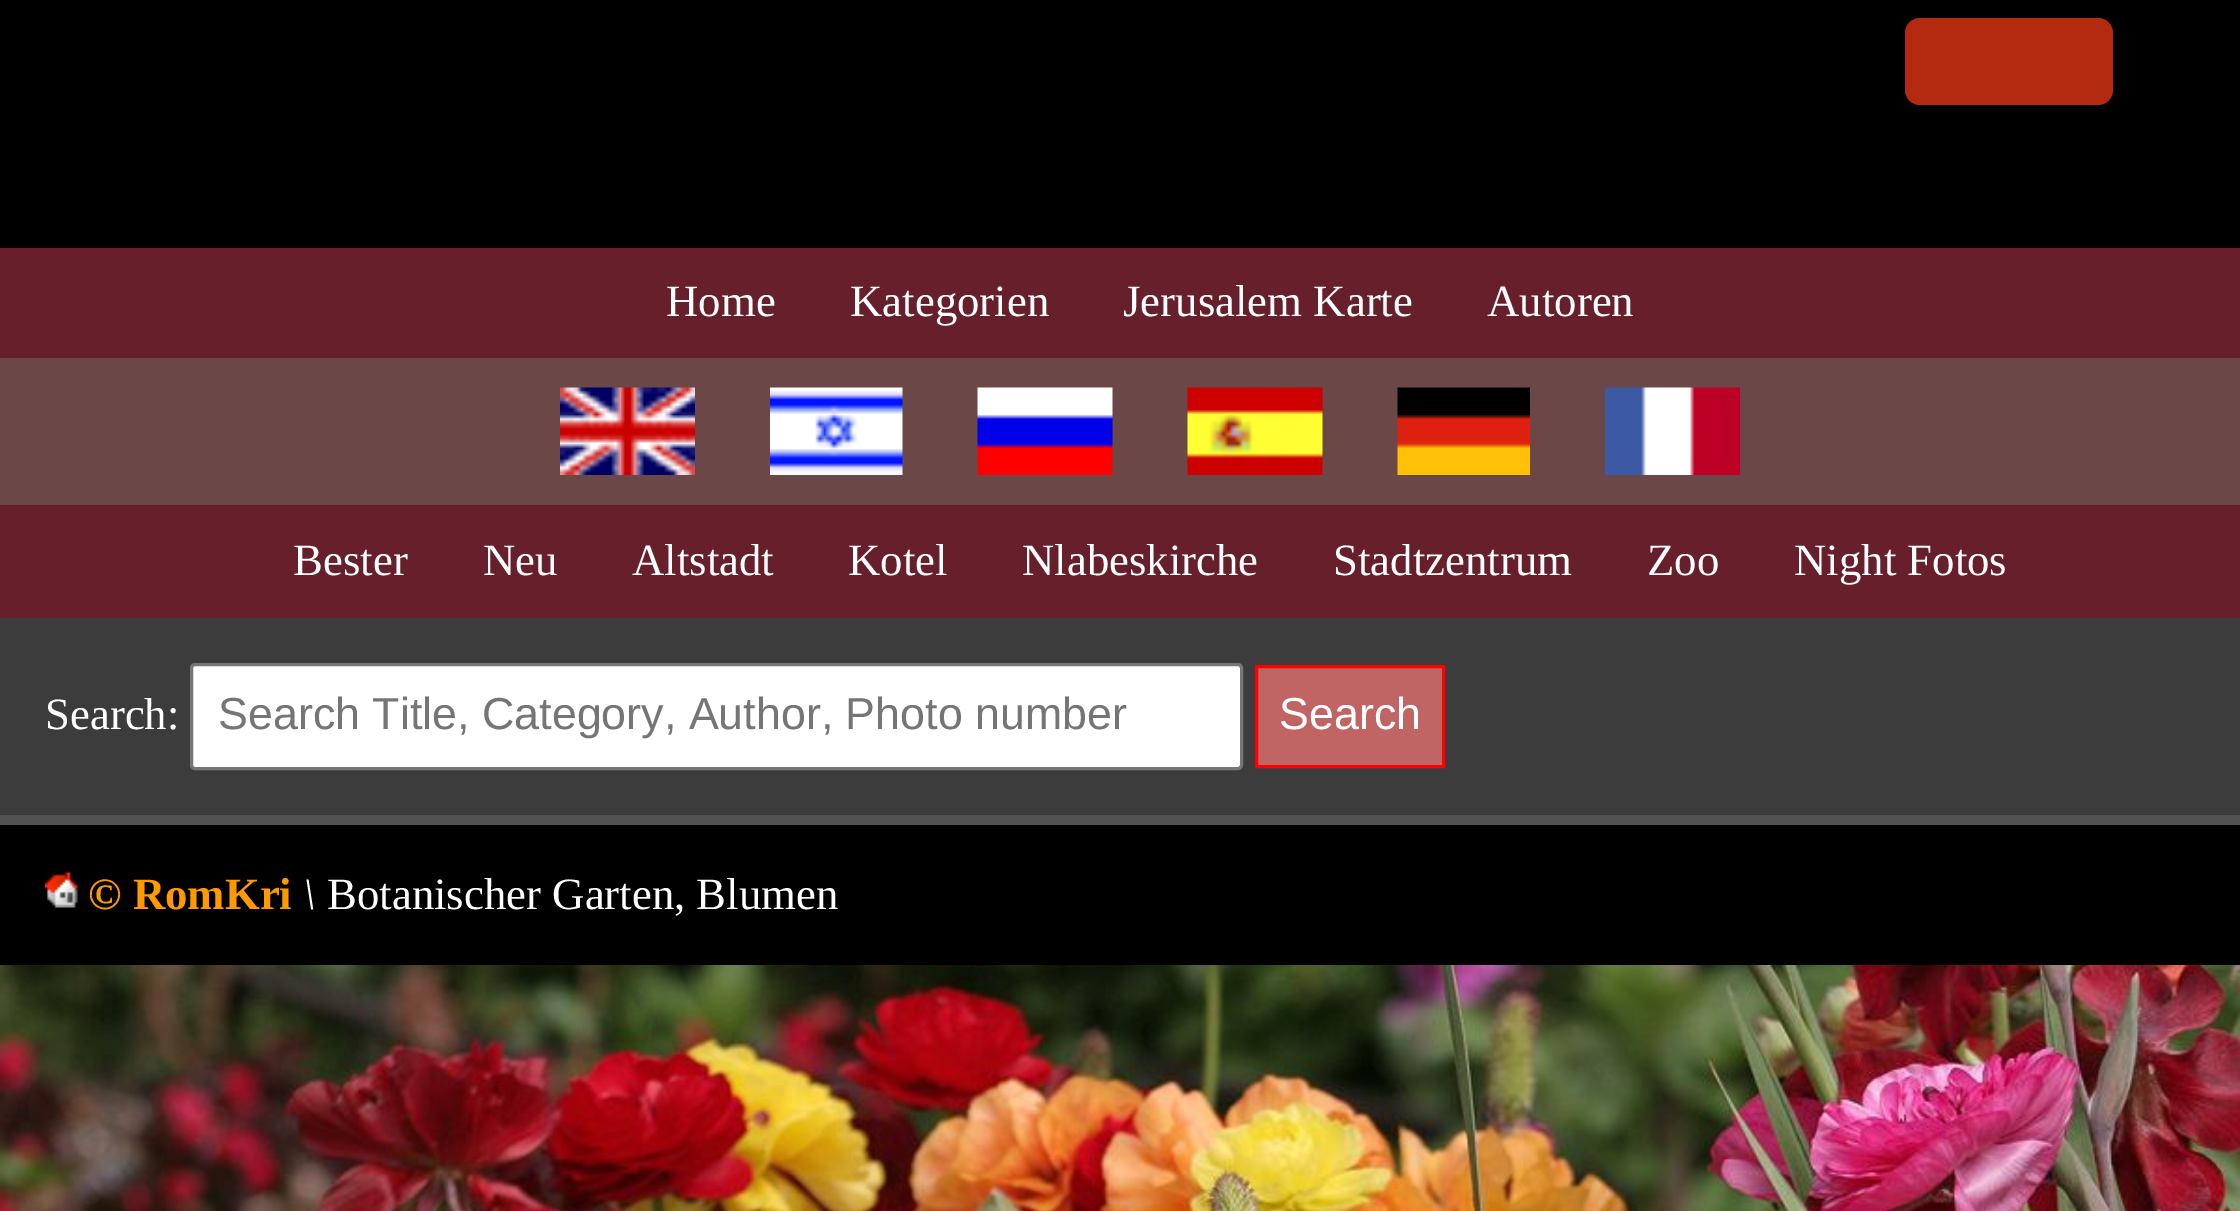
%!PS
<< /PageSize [2240 1211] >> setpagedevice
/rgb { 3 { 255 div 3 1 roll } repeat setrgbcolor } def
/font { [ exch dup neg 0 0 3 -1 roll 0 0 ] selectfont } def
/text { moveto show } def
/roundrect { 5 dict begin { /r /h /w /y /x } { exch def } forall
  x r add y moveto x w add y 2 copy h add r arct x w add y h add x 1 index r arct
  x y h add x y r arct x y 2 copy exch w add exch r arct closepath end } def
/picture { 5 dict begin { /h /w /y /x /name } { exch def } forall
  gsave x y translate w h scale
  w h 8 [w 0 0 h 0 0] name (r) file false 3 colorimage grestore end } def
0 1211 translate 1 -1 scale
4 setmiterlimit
0 0 0 rgb
0 0 2240 1211 rectfill
180 42 16 rgb
1905 18 208 87 15 roundrect fill
103 31 44 rgb
0 248 2240 110 rectfill
107 71 71 rgb
0 358 2240 147 rectfill
(img_01.rgb) 560 387 135 88 picture
(img_02.rgb) 770 387 133 88 picture
(img_03.rgb) 977 387 136 88 picture
(img_04.rgb) 1187 387 136 88 picture
(img_05.rgb) 1397 387 133 88 picture
(img_06.rgb) 1605 387 135 88 picture
103 31 44 rgb
0 505 2240 113 rectfill
60 60 60 rgb
0 618 2240 197 rectfill
255 255 255 rgb
191.5 664.5 1050 104 3.5 roundrect gsave fill grestore
118 118 118 rgb
3 setlinewidth
stroke
193 100 100 rgb
1256.5 666.5 moveto 187 0 rlineto 0 100 rlineto -187 0 rlineto closepath gsave fill grestore
255 0 0 rgb
stroke
82 82 82 rgb
0 815 2240 10 rectfill
(img_07.rgb) 45 872 33 36 picture
(img_08.rgb) 0 965 2240 246 picture
/LiberationSerif-Regular 44.8 font
255 255 255 rgb
(Home) 666 316 text
(Kategorien) 850 316 text
(Jerusalem Karte) 1123 316 text
(Autoren) 1487 316 text
(Bester) 293 575 text
(Neu) 483 575 text
(Altstadt) 632 575 text
(Kotel) 848 575 text
(Nlabeskirche) 1022 575 text
(Stadtzentrum) 1333 575 text
(Zoo) 1647 575 text
(Night Fotos) 1794 575 text
(Search:) 45 729 text
/LiberationSans-Regular 44.8 font
117 117 117 rgb
(Search Title, Category, Author, Photo number) 218 729 text
255 255 255 rgb
(Search) 1279 729 text
/LiberationSerif-Bold 44.8 font
255 153 0 rgb
(© RomKri) 88 909 text
/LiberationSerif-Italic 44.8 font
255 255 255 rgb
(\\) 303 909 text
/LiberationSerif-Regular 44.8 font
(Botanischer Garten, Blumen) 327 909 text
showpage
